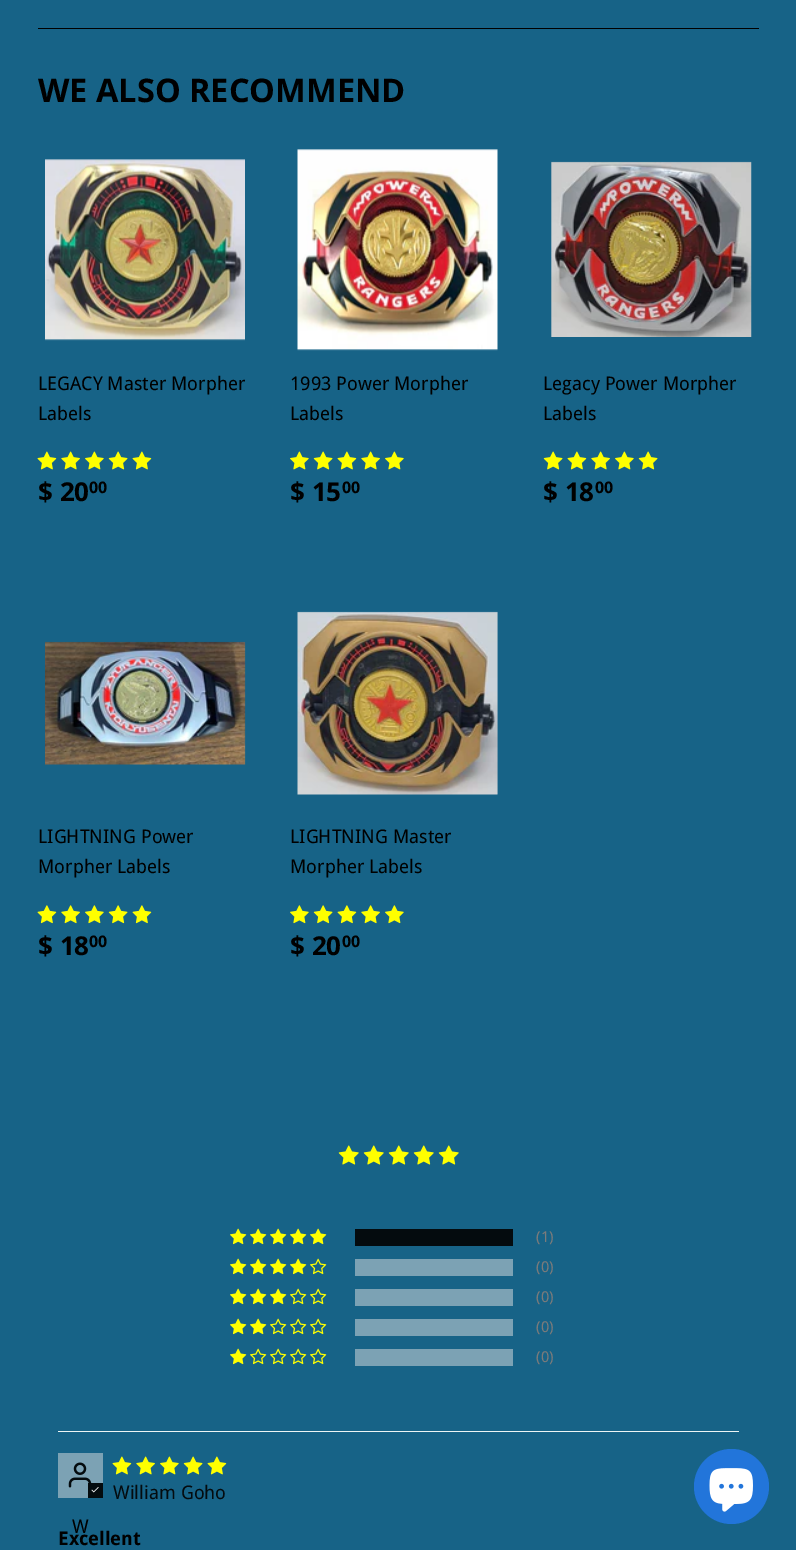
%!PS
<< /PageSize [796 1550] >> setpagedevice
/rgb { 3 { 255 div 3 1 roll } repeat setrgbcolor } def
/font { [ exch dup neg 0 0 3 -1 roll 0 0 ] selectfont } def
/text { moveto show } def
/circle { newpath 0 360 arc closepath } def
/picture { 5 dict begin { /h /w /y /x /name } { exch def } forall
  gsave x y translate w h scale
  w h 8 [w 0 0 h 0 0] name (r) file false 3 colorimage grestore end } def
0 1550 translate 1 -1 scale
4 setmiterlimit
23 99 135 rgb
0 0 796 1550 rectfill
0 0 0 rgb
38 28 721 1 rectfill
(img_01.rgb) 45 159 200 182 picture
(img_02.rgb) 37 451 20 19 picture
(img_03.rgb) 61 451 19 19 picture
(img_04.rgb) 85 451 19 19 picture
(img_05.rgb) 108 451 20 19 picture
(img_02.rgb) 132 451 20 19 picture
(img_06.rgb) 297 149 201 202 picture
(img_04.rgb) 290 451 19 19 picture
(img_05.rgb) 313 451 20 19 picture
(img_02.rgb) 337 451 20 19 picture
(img_03.rgb) 361 451 19 19 picture
(img_04.rgb) 385 451 19 19 picture
(img_07.rgb) 551 161 201 176 picture
(img_05.rgb) 543 451 20 19 picture
(img_02.rgb) 567 451 20 19 picture
(img_03.rgb) 591 451 19 19 picture
(img_04.rgb) 615 451 19 19 picture
(img_05.rgb) 638 451 20 19 picture
(img_08.rgb) 45 641 201 124 picture
(img_09.rgb) 37 905 20 19 picture
(img_10.rgb) 61 905 19 19 picture
(img_11.rgb) 85 905 19 19 picture
(img_12.rgb) 108 905 20 19 picture
(img_09.rgb) 132 905 20 19 picture
(img_13.rgb) 297 611 201 184 picture
(img_11.rgb) 290 905 19 19 picture
(img_12.rgb) 313 905 20 19 picture
(img_09.rgb) 337 905 20 19 picture
(img_10.rgb) 361 905 19 19 picture
(img_11.rgb) 385 905 19 19 picture
(img_14.rgb) 338 1145 21 20 picture
(img_14.rgb) 363 1145 21 20 picture
(img_14.rgb) 388 1145 21 20 picture
(img_14.rgb) 413 1145 21 20 picture
(img_14.rgb) 438 1145 21 20 picture
(img_15.rgb) 230 1228 17 17 picture
(img_15.rgb) 250 1228 17 17 picture
(img_15.rgb) 270 1228 17 17 picture
(img_15.rgb) 290 1228 17 17 picture
(img_15.rgb) 310 1228 17 17 picture
4 11 14 rgb
355 1229 158 17 rectfill
(img_15.rgb) 230 1258 17 17 picture
(img_15.rgb) 250 1258 17 17 picture
(img_15.rgb) 270 1258 17 17 picture
(img_15.rgb) 290 1258 17 17 picture
(img_16.rgb) 310 1258 17 17 picture
124 162 180 rgb
355 1259 158 17 rectfill
(img_15.rgb) 230 1288 17 17 picture
(img_15.rgb) 250 1288 17 17 picture
(img_15.rgb) 270 1288 17 17 picture
(img_16.rgb) 290 1288 17 17 picture
(img_16.rgb) 310 1288 17 17 picture
355 1289 158 17 rectfill
(img_15.rgb) 230 1318 17 17 picture
(img_15.rgb) 250 1318 17 17 picture
(img_16.rgb) 270 1318 17 17 picture
(img_16.rgb) 290 1318 17 17 picture
(img_16.rgb) 310 1318 17 17 picture
355 1319 158 17 rectfill
(img_15.rgb) 230 1348 17 17 picture
(img_16.rgb) 250 1348 17 17 picture
(img_16.rgb) 270 1348 17 17 picture
(img_16.rgb) 290 1348 17 17 picture
(img_16.rgb) 310 1348 17 17 picture
355 1349 158 17 rectfill
237 245 245 rgb
58 1431 681 1 rectfill
(img_02.rgb) 112 1456 20 19 picture
(img_03.rgb) 136 1456 19 19 picture
(img_04.rgb) 160 1456 19 19 picture
(img_05.rgb) 183 1456 20 19 picture
(img_02.rgb) 207 1456 20 19 picture
124 162 180 rgb
58 1453 45 45 rectfill
(img_17.rgb) 68 1462 24 26 picture
4 11 14 rgb
88 1483 15 15 rectfill
(img_18.rgb) 91 1487 8 6 picture
34 117 218 rgb
731.5 1486.5 37.5 circle fill
(img_19.rgb) 709 1468 44 44 picture
/OpenSans-Bold 32.5 font
0 0 0 rgb
(WE ALSO RECOMMEND) 38 102 text
/DroidSans-Regular 18.75 font
(LEGACY Master Morpher) 38 390 text
(Labels) 38 420 text
/OpenSans-Bold 26 font
($ 20) 38 501 text
/OpenSans-Bold 16 font
(00) 89 493 text
/DroidSans-Regular 18.75 font
(1993 Power Morpher) 290 390 text
(Labels) 290 420 text
/OpenSans-Bold 26 font
($ 15) 290 501 text
/OpenSans-Bold 16 font
(00) 342 493 text
/DroidSans-Regular 18.75 font
(Legacy Power Morpher) 543 390 text
(Labels) 543 420 text
/OpenSans-Bold 26 font
($ 18) 543 501 text
/OpenSans-Bold 16 font
(00) 595 493 text
/DroidSans-Regular 18.75 font
(LIGHTNING Power) 38 843 text
(Morpher Labels) 38 873 text
/OpenSans-Bold 26 font
($ 18) 38 955 text
/OpenSans-Bold 16 font
(00) 89 947 text
/DroidSans-Regular 18.75 font
(LIGHTNING Master) 290 843 text
(Morpher Labels) 290 873 text
/OpenSans-Bold 26 font
($ 20) 290 955 text
/OpenSans-Bold 16 font
(00) 342 947 text
/DroidSans-Regular 15 font
123 123 123 rgb
(\(1\)) 536 1242 text
(\(0\)) 536 1272 text
(\(0\)) 536 1302 text
(\(0\)) 536 1332 text
(\(0\)) 536 1362 text
/DroidSans-Regular 18.75 font
4 11 14 rgb
(William Goho) 113 1499 text
0 0 0 rgb
(W) 72 1533 text
/DroidSans-Bold 18.75 font
(Excellent) 58 1545 text
showpage
